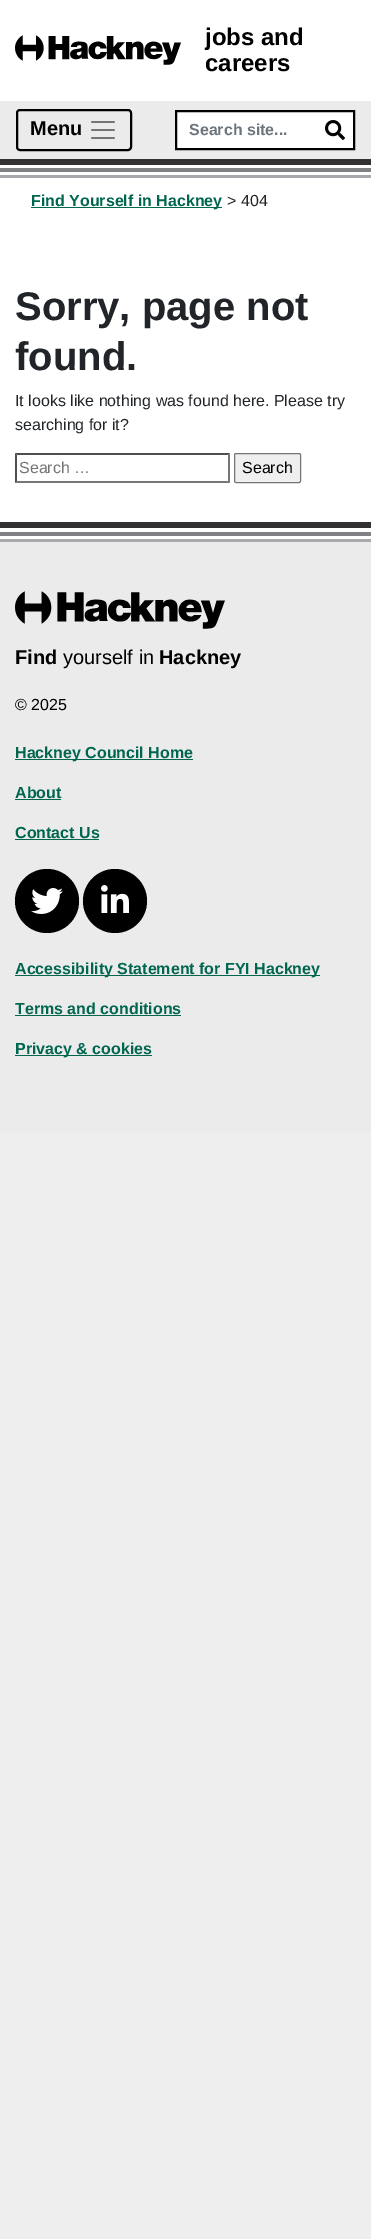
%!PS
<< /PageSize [371 2239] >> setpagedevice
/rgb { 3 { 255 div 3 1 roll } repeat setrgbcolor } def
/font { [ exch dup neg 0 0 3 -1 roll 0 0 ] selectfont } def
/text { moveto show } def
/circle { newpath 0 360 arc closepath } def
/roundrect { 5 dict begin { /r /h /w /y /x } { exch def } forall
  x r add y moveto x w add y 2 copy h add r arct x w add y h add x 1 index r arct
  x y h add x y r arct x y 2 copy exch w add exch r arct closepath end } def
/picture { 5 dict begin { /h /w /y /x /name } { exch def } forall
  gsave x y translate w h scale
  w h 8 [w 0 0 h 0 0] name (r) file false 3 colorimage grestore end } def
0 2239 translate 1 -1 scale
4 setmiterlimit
238 238 238 rgb
0 0 371 2239 rectfill
255 255 255 rgb
0 0 371 539 rectfill
51 49 50 rgb
0 159 371 6 rectfill
(img_01.rgb) 15 35 166 30 picture
235 235 235 rgb
0 101 371 58 rectfill
0 0 0 rgb
2 setlinewidth
17 110 114 40 3 roundrect stroke
(img_02.rgb) 91 121 24 18 picture
255 255 255 rgb
176 111 moveto 178 0 rlineto 0 38 rlineto -178 0 rlineto closepath gsave fill grestore
0 0 0 rgb
stroke
(img_03.rgb) 325 120 20 20 picture
128 130 133 rgb
0 168 371 4 rectfill
167 169 172 rgb
0 175 371 3 rectfill
0 102 79 rgb
31 207 191 1 rectfill
79 79 79 rgb
15 453 moveto 215 0 rlineto -2 2 rlineto -211 0 rlineto closepath fill
118 118 118 rgb
230 453 moveto 0 30 rlineto -2 -2 rlineto 0 -26 rlineto closepath fill
230 483 moveto -215 0 rlineto 2 -2 rlineto 211 0 rlineto closepath fill
79 79 79 rgb
15 483 moveto 0 -30 rlineto 2 2 rlineto 0 26 rlineto closepath fill
239 239 239 rgb
234.5 453.5 66 29 1.5 roundrect gsave fill grestore
118 118 118 rgb
1 setlinewidth
stroke
235 235 235 rgb
0 542 371 591 rectfill
167 169 172 rgb
0 539 371 3 rectfill
51 49 50 rgb
0 522 371 6 rectfill
128 130 133 rgb
0 532 371 4 rectfill
(img_04.rgb) 15 591 210 38 picture
0 102 79 rgb
15 759 178 1 rectfill
15 799 46 1 rectfill
15 839 84 1 rectfill
0 0 0 rgb
47 901 32 circle fill
(img_05.rgb) 31 888 32 26 picture
115 901 32 circle fill
(img_06.rgb) 101 885 28 28 picture
0 102 79 rgb
15 975 305 1 rectfill
15 1015 166 1 rectfill
15 1055 137 1 rectfill
/LiberationSans-Bold 24 font
0 0 0 rgb
(jobs and) 205 45 text
(careers) 205 71 text
/LiberationSans-Bold 20 font
(Menu) 30 135 text
/LiberationSans-Bold 16 font
108 117 125 rgb
(Search site...) 189 135 text
0 102 79 rgb
(Find Yourself in Hackney) 31 206 text
/LiberationSans-Regular 16 font
33 37 41 rgb
(> 404) 227 206 text
/LiberationSans-Bold 40 font
(Sorry, page not) 15 320 text
(found.) 15 370 text
/LiberationSans-Regular 16 font
(It looks like nothing was found here. Please try) 15 406 text
(searching for it?) 15 430 text
117 117 117 rgb
(Search …) 19 473 text
0 0 0 rgb
(Search) 242 473 text
/LiberationSans-Bold 20 font
(Find) 15 664 text
/LiberationSans-Regular 20 font
(yourself in) 63 664 text
/LiberationSans-Bold 20 font
(Hackney) 159 664 text
/LiberationSans-Regular 16 font
(© 2025) 15 710 text
/LiberationSans-Bold 16 font
0 102 79 rgb
(Hackney Council Home) 15 758 text
(About) 15 798 text
(Contact Us) 15 838 text
(Accessibility Statement for FYI Hackney) 15 974 text
(Terms and conditions) 15 1014 text
(Privacy & cookies) 15 1054 text
showpage
